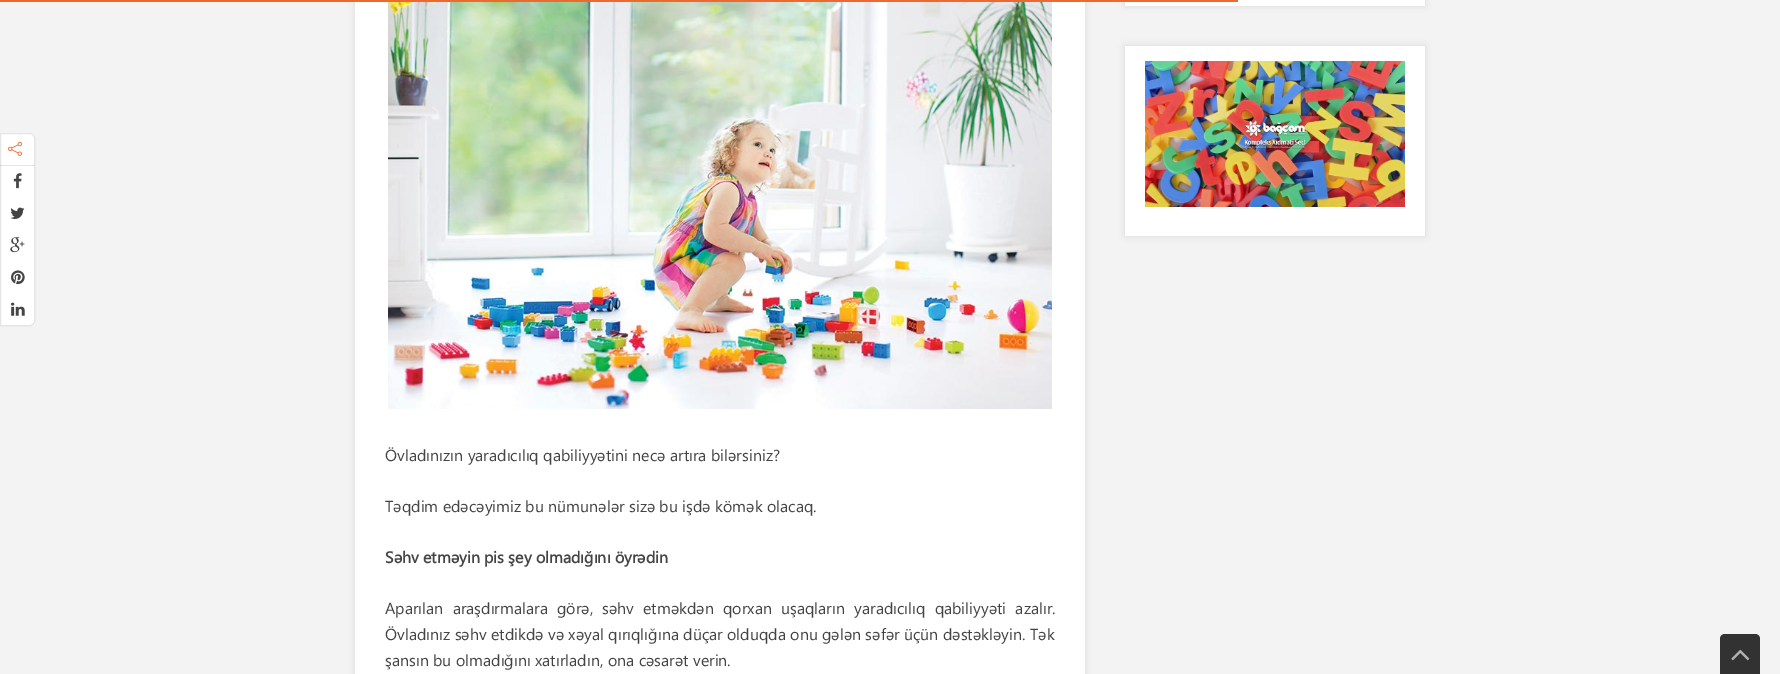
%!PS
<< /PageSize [1780 674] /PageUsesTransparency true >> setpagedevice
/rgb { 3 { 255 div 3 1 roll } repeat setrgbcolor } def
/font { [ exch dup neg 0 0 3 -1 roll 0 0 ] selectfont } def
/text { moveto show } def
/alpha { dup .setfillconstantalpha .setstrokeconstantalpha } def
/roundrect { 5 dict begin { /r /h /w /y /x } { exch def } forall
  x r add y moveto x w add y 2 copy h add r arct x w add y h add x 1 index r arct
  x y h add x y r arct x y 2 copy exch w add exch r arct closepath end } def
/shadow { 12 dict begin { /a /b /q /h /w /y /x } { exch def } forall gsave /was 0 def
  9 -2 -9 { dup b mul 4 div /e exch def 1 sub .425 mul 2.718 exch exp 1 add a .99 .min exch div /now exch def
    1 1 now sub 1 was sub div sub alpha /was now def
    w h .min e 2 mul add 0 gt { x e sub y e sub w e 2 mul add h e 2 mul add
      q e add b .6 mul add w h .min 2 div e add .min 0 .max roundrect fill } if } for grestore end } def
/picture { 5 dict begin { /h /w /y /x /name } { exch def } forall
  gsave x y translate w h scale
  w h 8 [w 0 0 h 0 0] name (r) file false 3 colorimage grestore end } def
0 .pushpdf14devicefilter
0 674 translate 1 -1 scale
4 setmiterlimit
243 243 243 rgb
0 0 1780 674 rectfill
255 255 255 rgb
0 133 moveto 30 0 rlineto 3 0 5 2 5 5 rcurveto 0 183 rlineto 0 3 -2 5 -5 5 rcurveto -30 0 rlineto closepath fill
0.1 alpha
0 0 0 rgb
0.5 133.5 moveto 29.5 0 rlineto 2.5 0 4.5 2 4.5 4.5 rcurveto 0 183 rlineto 0 2.5 -2 4.5 -4.5 4.5 rcurveto -29.5 0 rlineto closepath stroke
0 165 35 1 rectfill
1 alpha
(img_01.rgb) 8 141 14 15 picture
(img_02.rgb) 13 173 9 16 picture
(img_03.rgb) 10 207 15 12 picture
(img_04.rgb) 10 237 15 16 picture
(img_05.rgb) 11 270 14 15 picture
(img_06.rgb) 11 302 14 14 picture
1125 -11 300 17 0 3.5 0.1 shadow
255 255 255 rgb
1125 0 300 6 rectfill
0 0 0 rgb
355 -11 730 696 0 3.5 0.1 shadow
236 105 48 rgb
0 0 1238 2 rectfill
0 0 0 rgb
1125 46 300 190 0 3.5 0.1 shadow
255 255 255 rgb
1125 46 300 190 rectfill
(img_07.rgb) 1145 61 260 146 picture
355 2 730 672 rectfill
(img_08.rgb) 388 2 664 407 picture
50 50 50 rgb
1725 634 moveto 30 0 rlineto 3 0 5 2 5 5 rcurveto 0 35 rlineto -40 0 rlineto 0 -35 rlineto 0 -3 2 -5 5 -5 rcurveto closepath fill
(img_09.rgb) 1731 649 19 12 picture
/SegoeUI-Regular 16 font
68 68 68 rgb
(Övladınızın yaradıcılıq qabiliyyətini necə artıra bilərsiniz?) 385 461 text
(Təqdim edəcəyimiz bu nümunələr sizə bu işdə kömək olacaq.) 385 512 text
/SegoeUI-Bold 16 font
(Səhv etməyin pis şey olmadığını öyrədin) 385 563 text
/SegoeUI-Regular 16 font
385 614 moveto 4.75 0 32 (Aparılan araşdırmalara görə, səhv etməkdən qorxan uşaqların yaradıcılıq qabiliyyəti azalır.) widthshow
(Övladınız səhv etdikdə və xəyal qırıqlığına düçar olduqda onu gələn səfər üçün dəstəkləyin. Tək) 385 640 text
(şansın bu olmadığını xatırladın, ona cəsarət verin.) 385 666 text
.poppdf14devicefilter showpage
